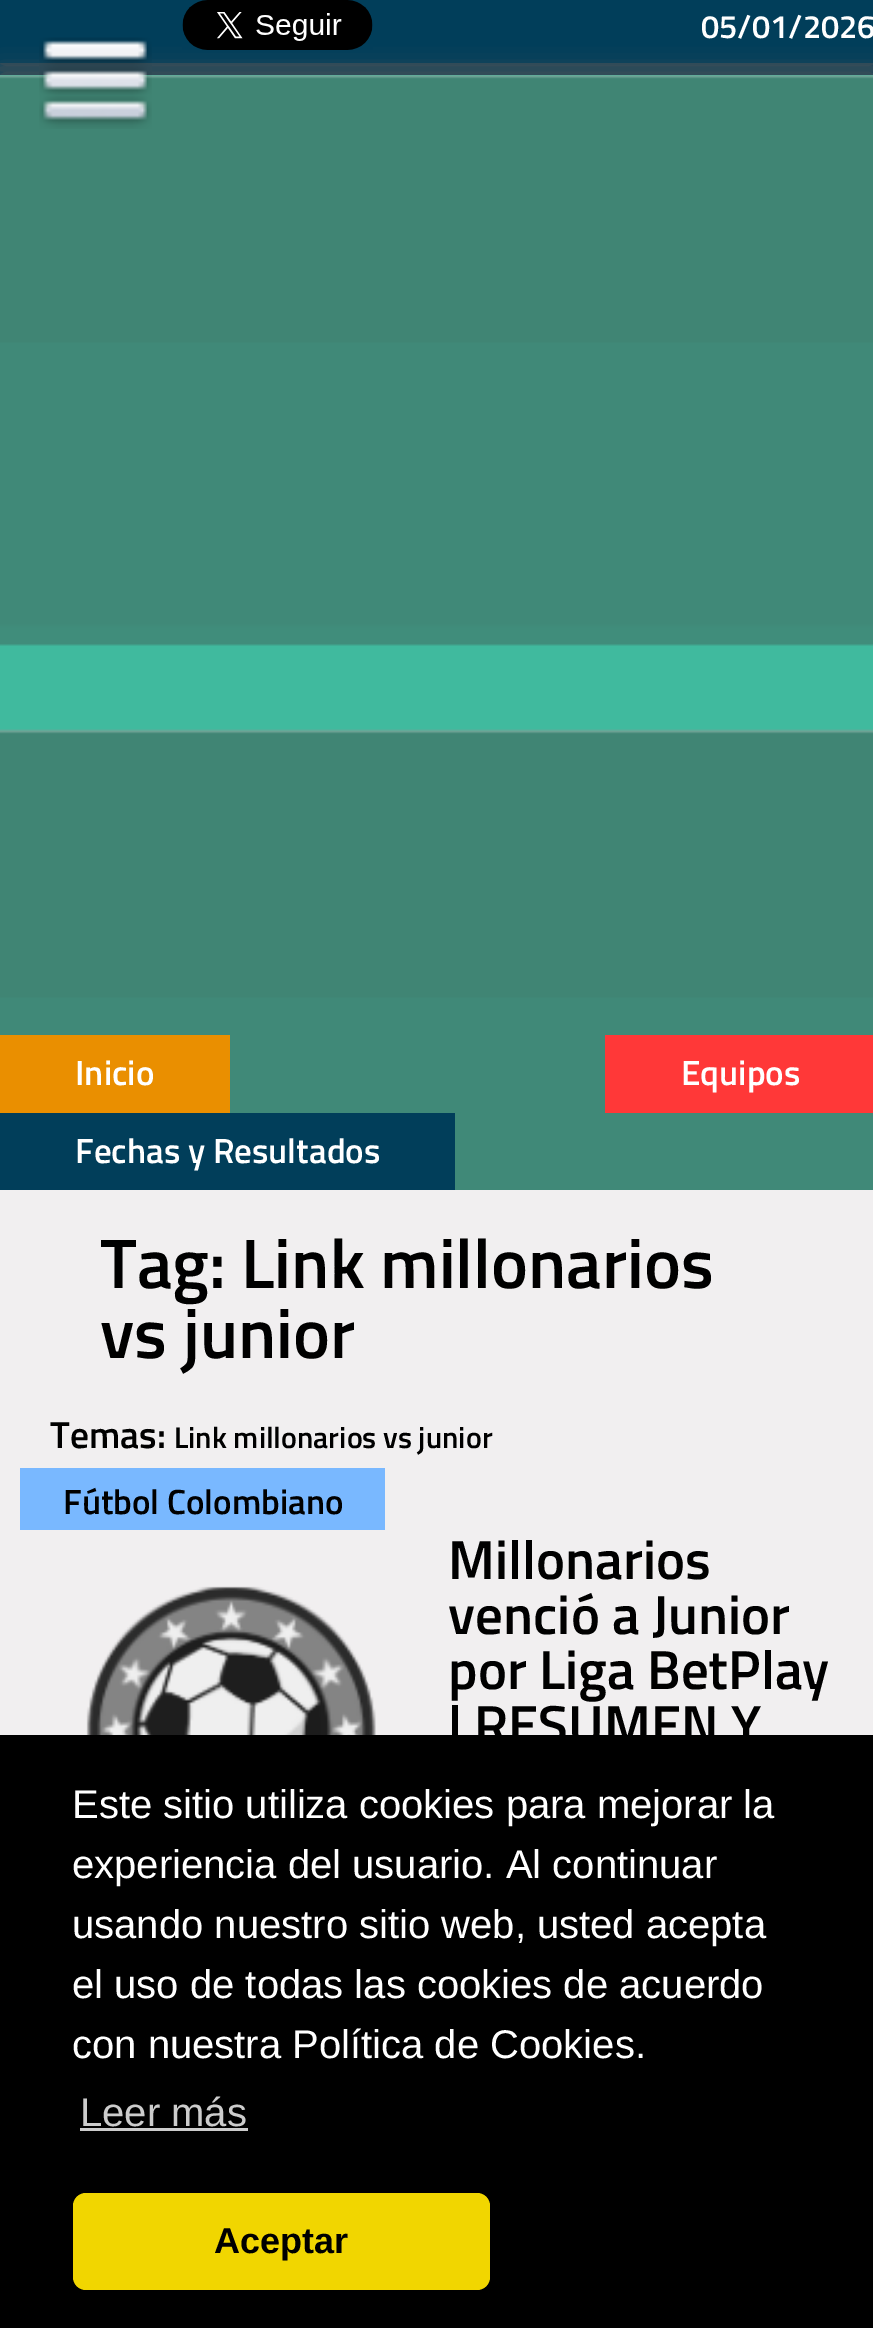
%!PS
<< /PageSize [873 2328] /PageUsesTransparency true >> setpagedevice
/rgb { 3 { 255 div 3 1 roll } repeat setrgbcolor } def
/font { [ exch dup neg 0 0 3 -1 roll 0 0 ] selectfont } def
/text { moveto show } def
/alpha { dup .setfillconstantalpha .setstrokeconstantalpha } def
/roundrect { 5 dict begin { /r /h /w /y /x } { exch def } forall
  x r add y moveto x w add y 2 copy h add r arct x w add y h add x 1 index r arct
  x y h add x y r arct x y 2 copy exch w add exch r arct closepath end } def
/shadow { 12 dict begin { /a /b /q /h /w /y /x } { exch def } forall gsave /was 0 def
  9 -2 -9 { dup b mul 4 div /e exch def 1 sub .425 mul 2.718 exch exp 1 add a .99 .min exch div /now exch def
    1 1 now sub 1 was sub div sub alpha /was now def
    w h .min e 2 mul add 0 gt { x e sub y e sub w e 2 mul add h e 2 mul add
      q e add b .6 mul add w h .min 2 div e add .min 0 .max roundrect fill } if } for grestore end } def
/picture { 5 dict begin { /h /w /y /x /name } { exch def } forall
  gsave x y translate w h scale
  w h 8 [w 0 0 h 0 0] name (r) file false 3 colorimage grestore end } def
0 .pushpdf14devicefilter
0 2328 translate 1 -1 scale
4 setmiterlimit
1 62 90 rgb
0 0 873 2328 rectfill
85 85 85 rgb
0 0 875 63 0 12.5 1 shadow
1 62 90 rgb
0 0 873 63 rectfill
85 85 85 rgb
0 75 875 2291 0 12.5 1 shadow
(img_01.rgb) 182 0 191 50 picture
255 255 255 rgb
0 75 873 960 rectfill
(img_02.rgb) 0 75 873 960 picture
64 137 120 rgb
230 1035 643 155 rectfill
234 143 0 rgb
0 1035 230 78 rectfill
255 56 56 rgb
605 1035 268 78 rectfill
1 62 90 rgb
0 1113 455 77 rectfill
241 239 240 rgb
0 1190 873 545 rectfill
121 184 255 rgb
20 1468 365 62 rectfill
(img_03.rgb) 86 1586 290 149 picture
(img_04.rgb) 39 37 113 92 picture
0 0 0 rgb
0 1735 873 593 rectfill
204 204 204 rgb
80 2128 168 3 rectfill
241 214 0 rgb
73 2193 417 97 13 roundrect fill
/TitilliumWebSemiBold-SemiBold 32.5 font
255 255 255 rgb
(05/01/2026) 701 38 text
/TitilliumWebSemiBold-SemiBold 35 font
(Inicio) 75 1085 text
(Equipos) 681 1085 text
(Fechas y Resultados) 75 1163 text
/TitilliumWebSemiBold-SemiBold 70 font
0 0 0 rgb
(Tag: Link millonarios) 100 1288 text
(vs junior) 100 1358 text
/TitilliumWebSemiBold-SemiBold 37.5 font
(Temas:) 50 1448 text
/TitilliumWebSemiBold-SemiBold 30 font
(Link millonarios vs junior) 174 1448 text
/TitilliumWebSemiBold-SemiBold 35 font
(Fútbol Colombiano) 63 1514 text
/TitilliumWebSemiBold-SemiBold 55 font
(Millonarios) 448 1579 text
(venció a Junior) 448 1634 text
(por Liga BetPlay) 448 1689 text
(| RESUMEN Y) 448 1744 text
/LiberationSans-Regular 40 font
255 255 255 rgb
(Este sitio utiliza cookies para mejorar la) 72 1818 text
(experiencia del usuario. Al continuar) 72 1878 text
(usando nuestro sitio web, usted acepta) 72 1938 text
(el uso de todas las cookies de acuerdo) 72 1998 text
(con nuestra Política de Cookies.) 72 2058 text
204 204 204 rgb
(Leer más) 80 2126 text
/LiberationSans-Bold 36 font
0 0 0 rgb
(Aceptar) 214 2253 text
.poppdf14devicefilter showpage
